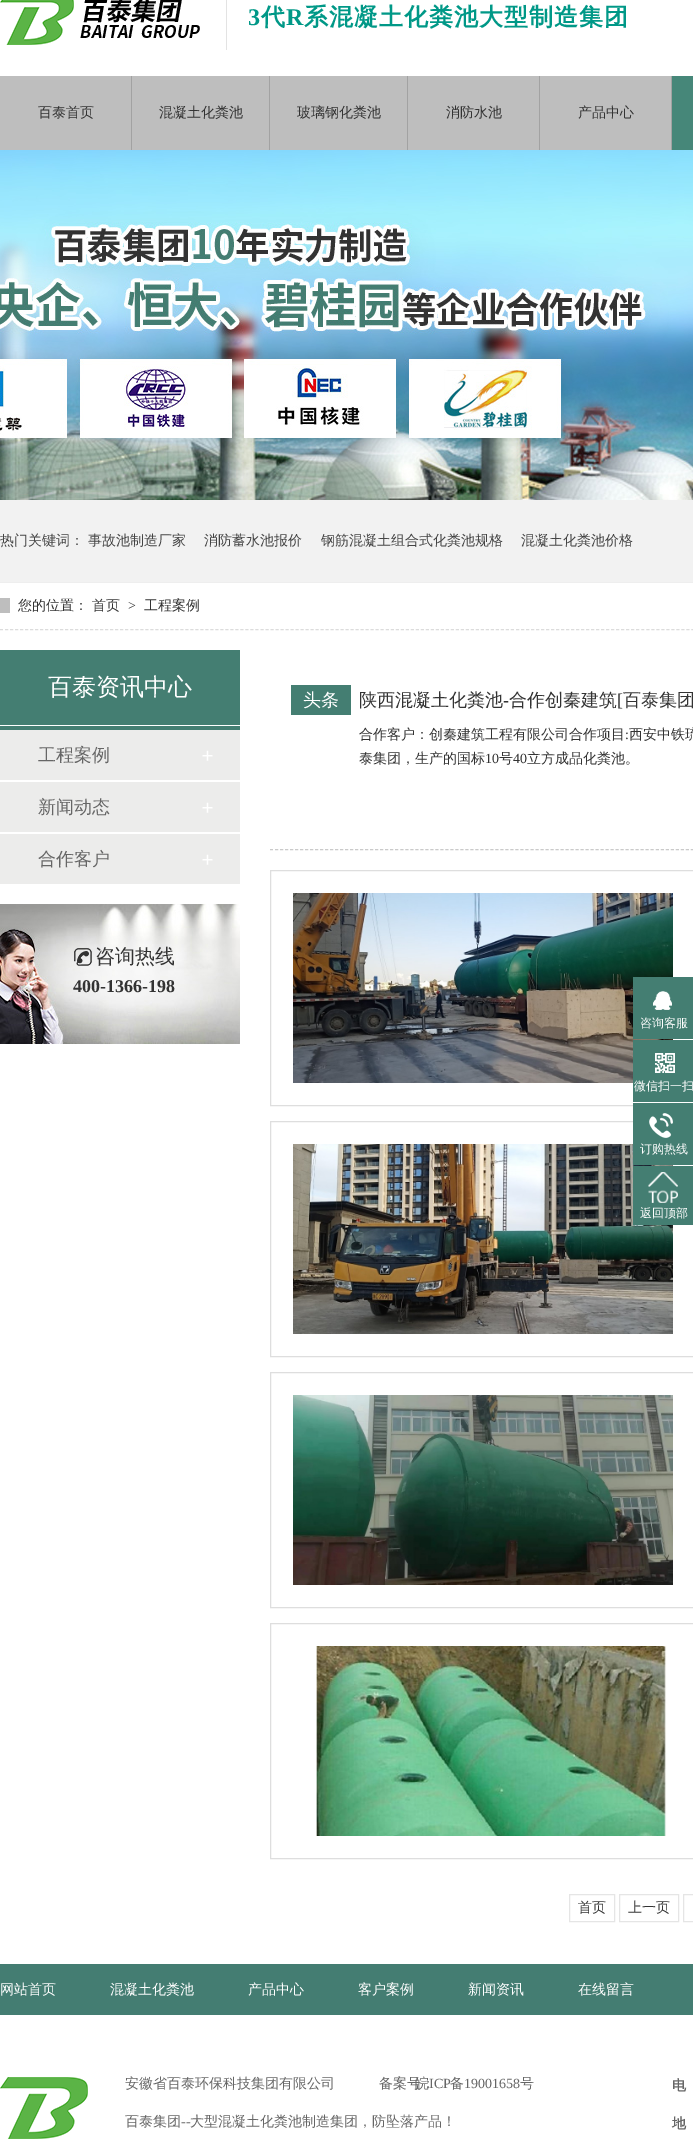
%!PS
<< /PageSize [693 2141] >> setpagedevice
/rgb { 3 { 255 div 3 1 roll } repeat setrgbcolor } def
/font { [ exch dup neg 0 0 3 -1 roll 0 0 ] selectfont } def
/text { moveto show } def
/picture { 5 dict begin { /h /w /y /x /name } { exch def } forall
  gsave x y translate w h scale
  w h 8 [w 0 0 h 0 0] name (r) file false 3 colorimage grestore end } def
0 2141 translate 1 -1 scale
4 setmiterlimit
255 255 255 rgb
0 0 693 2141 rectfill
227 227 227 rgb
226 0 1 50 rectfill
(img_01.rgb) 0 0 200 45 picture
190 190 190 rgb
0 76 671 74 rectfill
162 162 162 rgb
131 76 1 74 rectfill
269 76 1 74 rectfill
407 76 1 74 rectfill
539 76 1 74 rectfill
671 76 1 74 rectfill
70 135 121 rgb
672 76 21 74 rectfill
(img_02.rgb) 0 150 693 350 picture
242 242 242 rgb
0 500 693 82 rectfill
238 238 238 rgb
0 582 693 1 rectfill
220 220 220 rgb
[3 2.01] 0 setdash
0 629.5 moveto 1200 0 rlineto stroke
190 190 190 rgb
0 598 10 15 rectfill
68 126 114 rgb
0 650 240 80 rectfill
255 255 255 rgb
0 725 240 1 rectfill
236 236 235 rgb
0 730 240 50 rectfill
(img_03.rgb) 202 750 11 11 picture
0 782 240 50 rectfill
(img_03.rgb) 202 802 11 11 picture
0 834 240 50 rectfill
(img_03.rgb) 202 854 11 11 picture
(img_04.rgb) 0 904 240 140 picture
(img_05.rgb) 74 948 18 18 picture
202 202 202 rgb
270 849.5 moveto 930 0 rlineto stroke
68 126 114 rgb
291 685 60 30 rectfill
222 222 222 rgb
[] 0 setdash
270.5 870.5 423 235 rectstroke
(img_06.rgb) 293 893 380 190 picture
270.5 1121.5 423 235 rectstroke
(img_07.rgb) 293 1144 380 190 picture
270.5 1372.5 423 235 rectstroke
(img_08.rgb) 293 1395 380 190 picture
270.5 1623.5 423 235 rectstroke
(img_09.rgb) 316 1646 351 190 picture
229 229 229 rgb
569.5 1894.5 45 27 rectstroke
619.5 1894.5 59 27 rectstroke
683.5 1894.5 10 27 rectstroke
68 126 114 rgb
633 977 60 62 rectfill
(img_10.rgb) 653 991 19 19 picture
633 1040 60 62 rectfill
(img_11.rgb) 655 1053 20 20 picture
633 1103 60 62 rectfill
(img_12.rgb) 649 1113 24 25 picture
633 1166 60 59 rectfill
(img_13.rgb) 648 1172 30 31 picture
68 125 114 rgb
0 1964 693 51 rectfill
(img_14.rgb) 0 2077 88 62 picture
/LiberationSerif-Bold 24 font
0 152 135 rgb
248 25 moveto 1 0 (3) ashow
/WenQuanYiZenHei-Bold 24 font
261 25 moveto 1 0 (代) ashow
/LiberationSerif-Bold 24 font
286 25 moveto 1 0 (R) ashow
/WenQuanYiZenHei-Bold 24 font
304 25 moveto 1 0 (系混凝土化粪池大型制造集团) ashow
/WenQuanYiZenHei-Medium 14 font
51 51 51 rgb
(百泰首页) 38 117 text
(混凝土化粪池) 159 117 text
(玻璃钢化粪池) 297 117 text
(消防水池) 446 117 text
(产品中心) 578 117 text
68 68 68 rgb
(热门关键词：) 0 545 text
(事故池制造厂家) 88 545 text
(消防蓄水池报价) 204 545 text
(钢筋混凝土组合式化粪池规格) 321 545 text
(混凝土化粪池价格) 521 545 text
51 51 51 rgb
(您的位置：) 18 610 text
(首页) 92 610 text
/LiberationSerif-Regular 14 font
(>) 128 610 text
/WenQuanYiZenHei-Medium 14 font
(工程案例) 144 610 text
/WenQuanYiZenHei-Medium 24 font
255 255 255 rgb
(百泰资讯中心) 48 695 text
/WenQuanYiZenHei-Medium 18 font
102 102 102 rgb
(工程案例) 38 761 text
(新闻动态) 38 813 text
(合作客户) 38 865 text
/WenQuanYiZenHei-Medium 20 font
51 51 51 rgb
(咨询热线) 95 963 text
/LiberationSerif-Bold 18 font
(400-1366-198) 73 992 text
/WenQuanYiZenHei-Medium 18 font
255 255 255 rgb
(头条) 303 706 text
51 51 51 rgb
(陕西混凝土化粪池) 359 706 text
/LiberationSerif-Regular 18 font
(-) 503 706 text
/WenQuanYiZenHei-Medium 18 font
(合作创秦建筑) 509 706 text
/LiberationSerif-Regular 18 font
([) 617 706 text
/WenQuanYiZenHei-Medium 18 font
(百泰集团) 623 706 text
/WenQuanYiZenHei-Medium 14 font
(合作客户：创秦建筑工程有限公司合作项目) 359 739 text
/LiberationSerif-Regular 14 font
(:) 625 739 text
/WenQuanYiZenHei-Medium 14 font
(西安中铁琉) 629 739 text
(泰集团，生产的国标) 359 763 text
/LiberationSerif-Regular 14 font
(10) 485 763 text
/WenQuanYiZenHei-Medium 14 font
(号) 499 763 text
/LiberationSerif-Regular 14 font
(40) 513 763 text
/WenQuanYiZenHei-Medium 14 font
(立方成品化粪池。) 527 763 text
(首页) 578 1912 text
(上一页) 628 1912 text
/WenQuanYiZenHei-Medium 12 font
255 255 255 rgb
(咨询客服) 640 1027 text
(微信扫一扫) 634 1090 text
(订购热线) 640 1153 text
(返回顶部) 640 1217 text
/WenQuanYiZenHei-Medium 14 font
(网站首页) 0 1994 text
(混凝土化粪池) 110 1994 text
(产品中心) 248 1994 text
(客户案例) 358 1994 text
(新闻资讯) 468 1994 text
(在线留言) 578 1994 text
102 102 102 rgb
(安徽省百泰环保科技集团有限公司) 125 2088 text
(备案号：) 379 2088 text
(皖) 415 2088 text
/LiberationSerif-Regular 14 font
(ICP) 429 2088 text
/WenQuanYiZenHei-Medium 14 font
(备) 450 2088 text
/LiberationSerif-Regular 14 font
(19001658) 464 2088 text
/WenQuanYiZenHei-Medium 14 font
(号) 520 2088 text
(百泰集团) 125 2126 text
/LiberationSerif-Regular 14 font
(--) 181 2126 text
/WenQuanYiZenHei-Medium 14 font
(大型混凝土化粪池制造集团，防坠落产品！) 190 2126 text
/WenQuanYiZenHei-Bold 14 font
(电) 672 2090 text
(地) 672 2128 text
showpage
